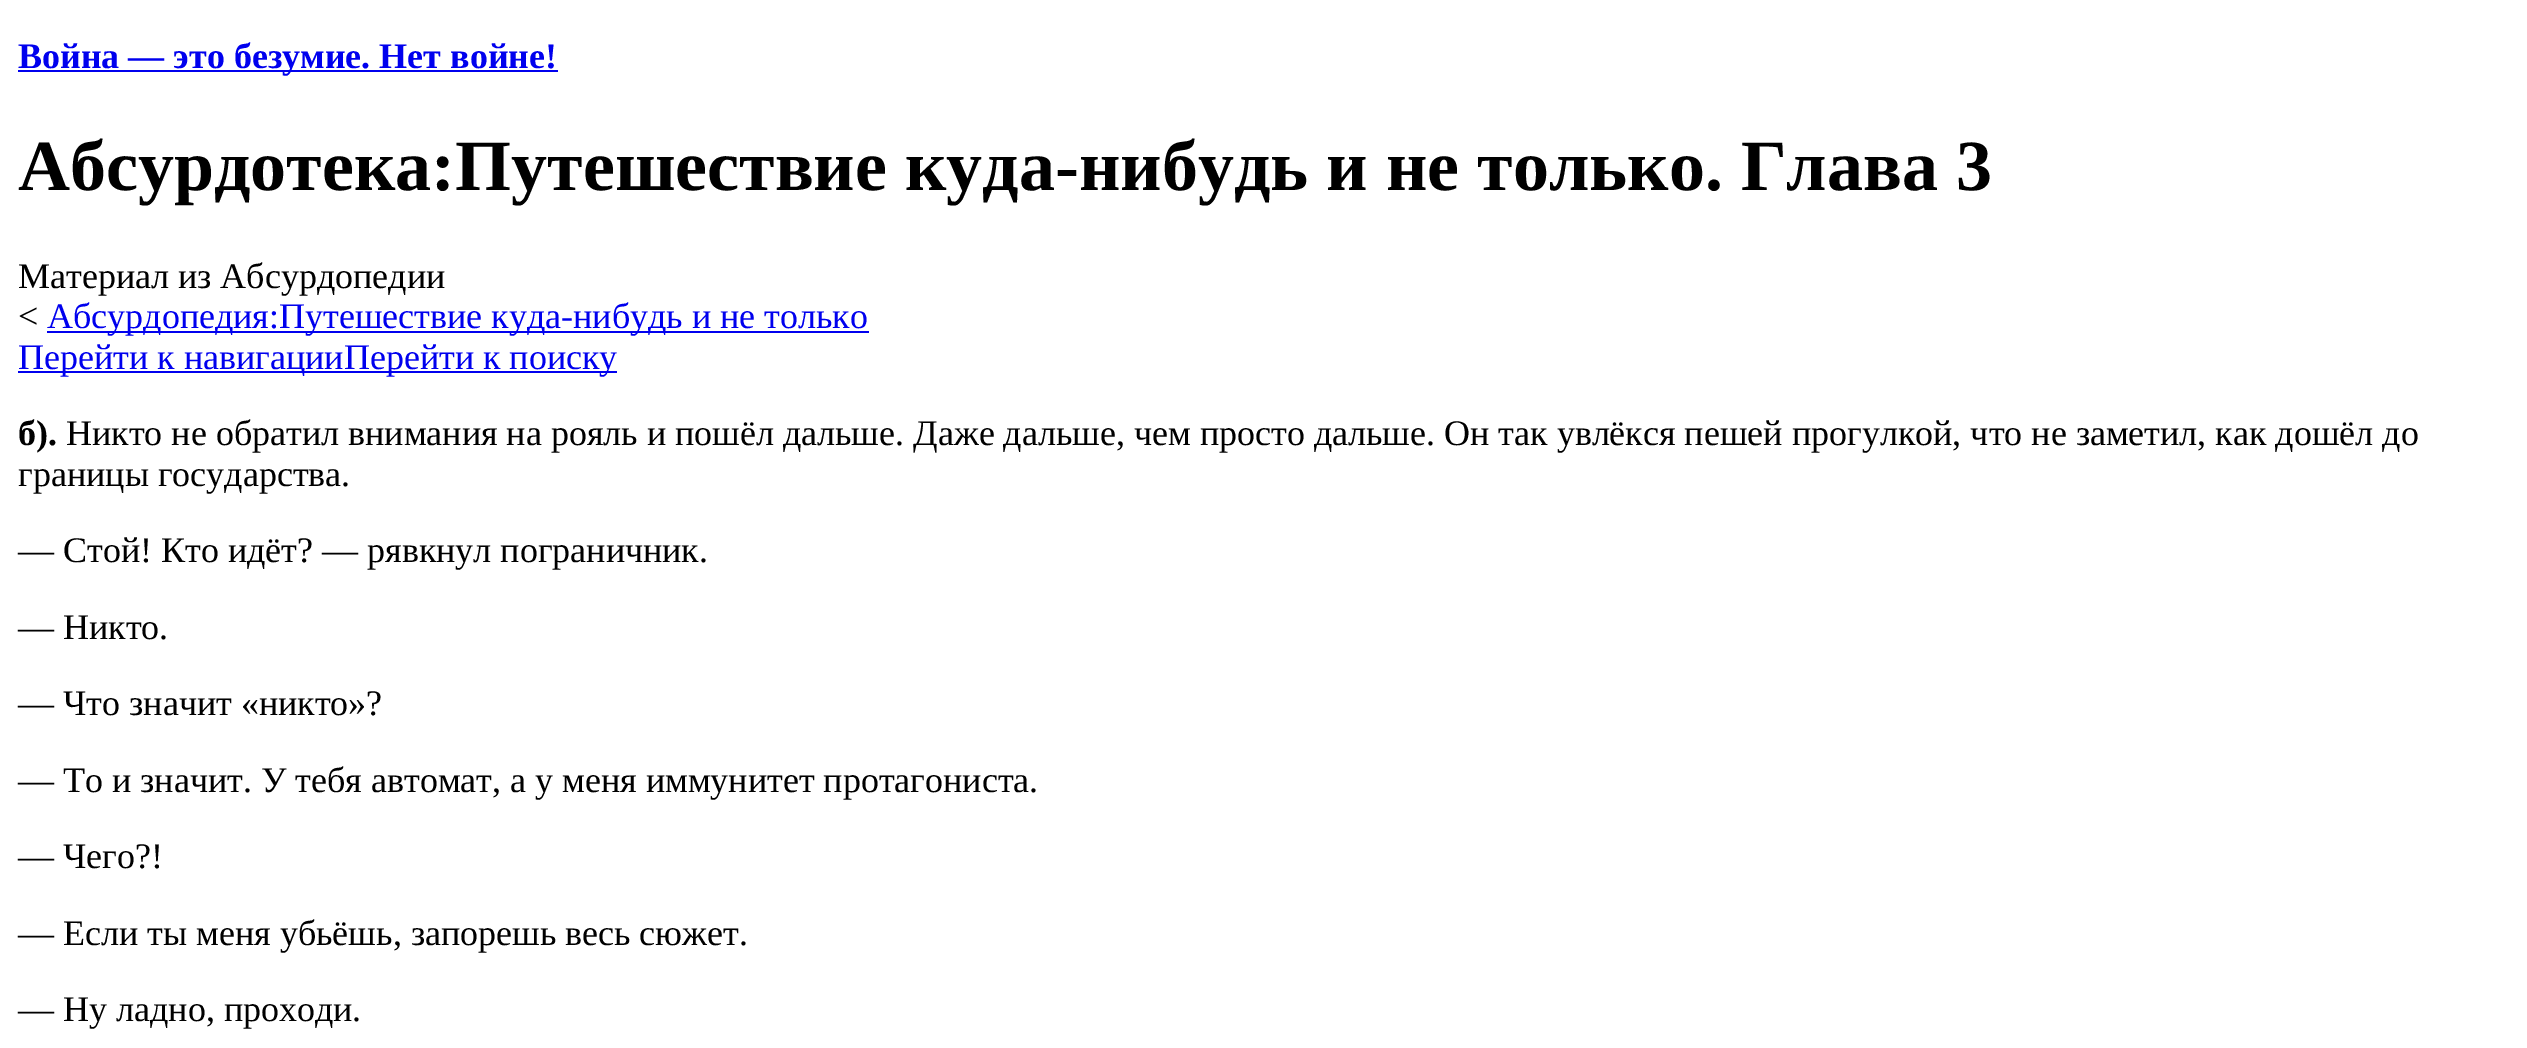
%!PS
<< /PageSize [2527 1048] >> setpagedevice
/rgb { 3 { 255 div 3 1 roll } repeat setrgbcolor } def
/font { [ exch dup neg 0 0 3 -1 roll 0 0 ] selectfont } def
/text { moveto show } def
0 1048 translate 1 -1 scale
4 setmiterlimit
255 255 255 rgb
0 0 2527 1048 rectfill
0 0 238 rgb
18 70 540 2 rectfill
47 331 822 2 rectfill
18 371 599 2 rectfill
/LiberationSerif-Bold 36 font
(Война — это безумие. Нет войне!) 18 68 text
/LiberationSerif-Bold 72 font
0 0 0 rgb
(Абсурдотека:Путешествие куда-нибудь и не только. Глава 3) 18 190 text
/LiberationSerif-Regular 36 font
(Материал из Абсурдопедии) 18 288 text
(<) 18 328 text
0 0 238 rgb
(Абсурдопедия:Путешествие куда-нибудь и не только) 47 328 text
(Перейти к навигацииПерейти к поиску) 18 369 text
/LiberationSerif-Bold 36 font
0 0 0 rgb
(б\).) 18 445 text
/LiberationSerif-Regular 36 font
(Никто не обратил внимания на рояль и пошёл дальше. Даже дальше, чем просто дальше. Он так увлёкся пешей прогулкой, что не заметил, как дошёл до) 66 445 text
(границы государства.) 18 486 text
(— Стой! Кто идёт? — рявкнул пограничник.) 18 562 text
(— Никто.) 18 639 text
(— Что значит «никто»?) 18 715 text
(— То и значит. У тебя автомат, а у меня иммунитет протагониста.) 18 792 text
(— Чего?!) 18 868 text
(— Если ты меня убьёшь, запорешь весь сюжет.) 18 945 text
(— Ну ладно, проходи.) 18 1021 text
showpage
